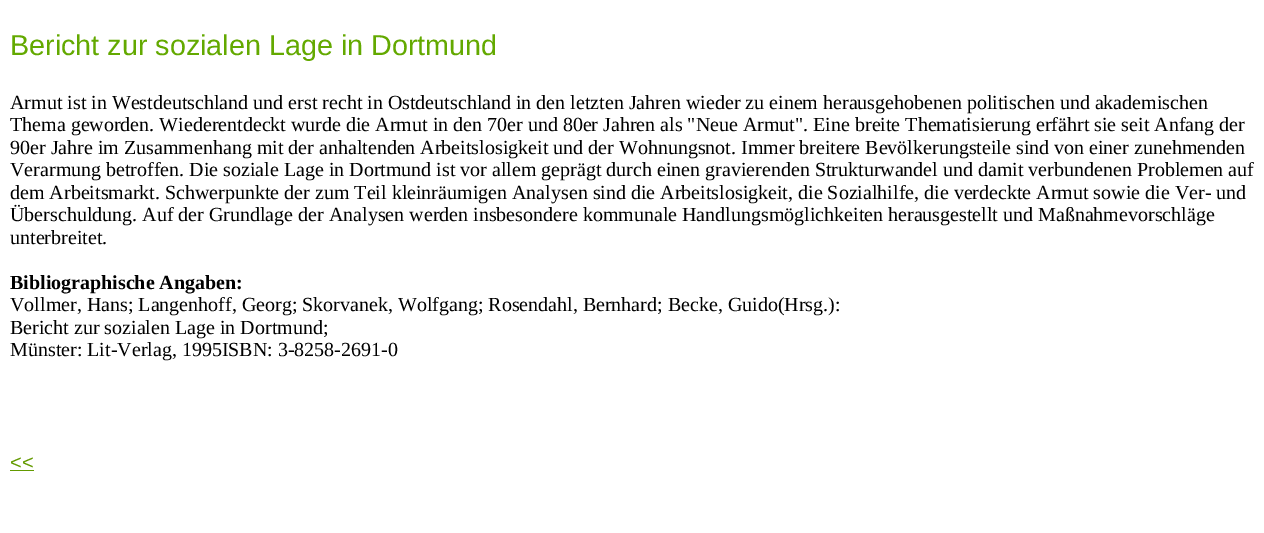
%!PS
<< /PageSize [1264 533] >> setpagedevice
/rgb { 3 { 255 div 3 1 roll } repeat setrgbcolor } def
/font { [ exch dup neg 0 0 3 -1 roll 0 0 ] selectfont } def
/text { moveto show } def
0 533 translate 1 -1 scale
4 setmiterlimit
255 255 255 rgb
0 0 1264 533 rectfill
99 154 0 rgb
10 470 24 1 rectfill
/LiberationSans-Regular 28.75 font
99 169 0 rgb
(Bericht zur sozialen Lage in Dortmund) 10 55 text
/LiberationSerif-Regular 20 font
0 0 0 rgb
(Armut ist in Westdeutschland und erst recht in Ostdeutschland in den letzten Jahren wieder zu einem herausgehobenen politischen und akademischen) 10 109 text
(Thema geworden. Wiederentdeckt wurde die Armut in den 70er und 80er Jahren als "Neue Armut". Eine breite Thematisierung erfährt sie seit Anfang der) 10 131 text
(90er Jahre im Zusammenhang mit der anhaltenden Arbeitslosigkeit und der Wohnungsnot. Immer breitere Bevölkerungsteile sind von einer zunehmenden) 10 154 text
(Verarmung betroffen. Die soziale Lage in Dortmund ist vor allem geprägt durch einen gravierenden Strukturwandel und damit verbundenen Problemen auf) 10 176 text
(dem Arbeitsmarkt. Schwerpunkte der zum Teil kleinräumigen Analysen sind die Arbeitslosigkeit, die Sozialhilfe, die verdeckte Armut sowie die Ver- und) 10 199 text
(Überschuldung. Auf der Grundlage der Analysen werden insbesondere kommunale Handlungsmöglichkeiten herausgestellt und Maßnahmevorschläge) 10 221 text
(unterbreitet.) 10 244 text
/LiberationSerif-Bold 20 font
(Bibliographische Angaben:) 10 289 text
/LiberationSerif-Regular 20 font
(Vollmer, Hans; Langenhoff, Georg; Skorvanek, Wolfgang; Rosendahl, Bernhard; Becke, Guido\(Hrsg.\):) 10 311 text
(Bericht zur sozialen Lage in Dortmund;) 10 334 text
(Münster: Lit-Verlag, 1995ISBN: 3-8258-2691-0) 10 356 text
/LiberationSans-Regular 20 font
99 154 0 rgb
(<<) 10 469 text
showpage
